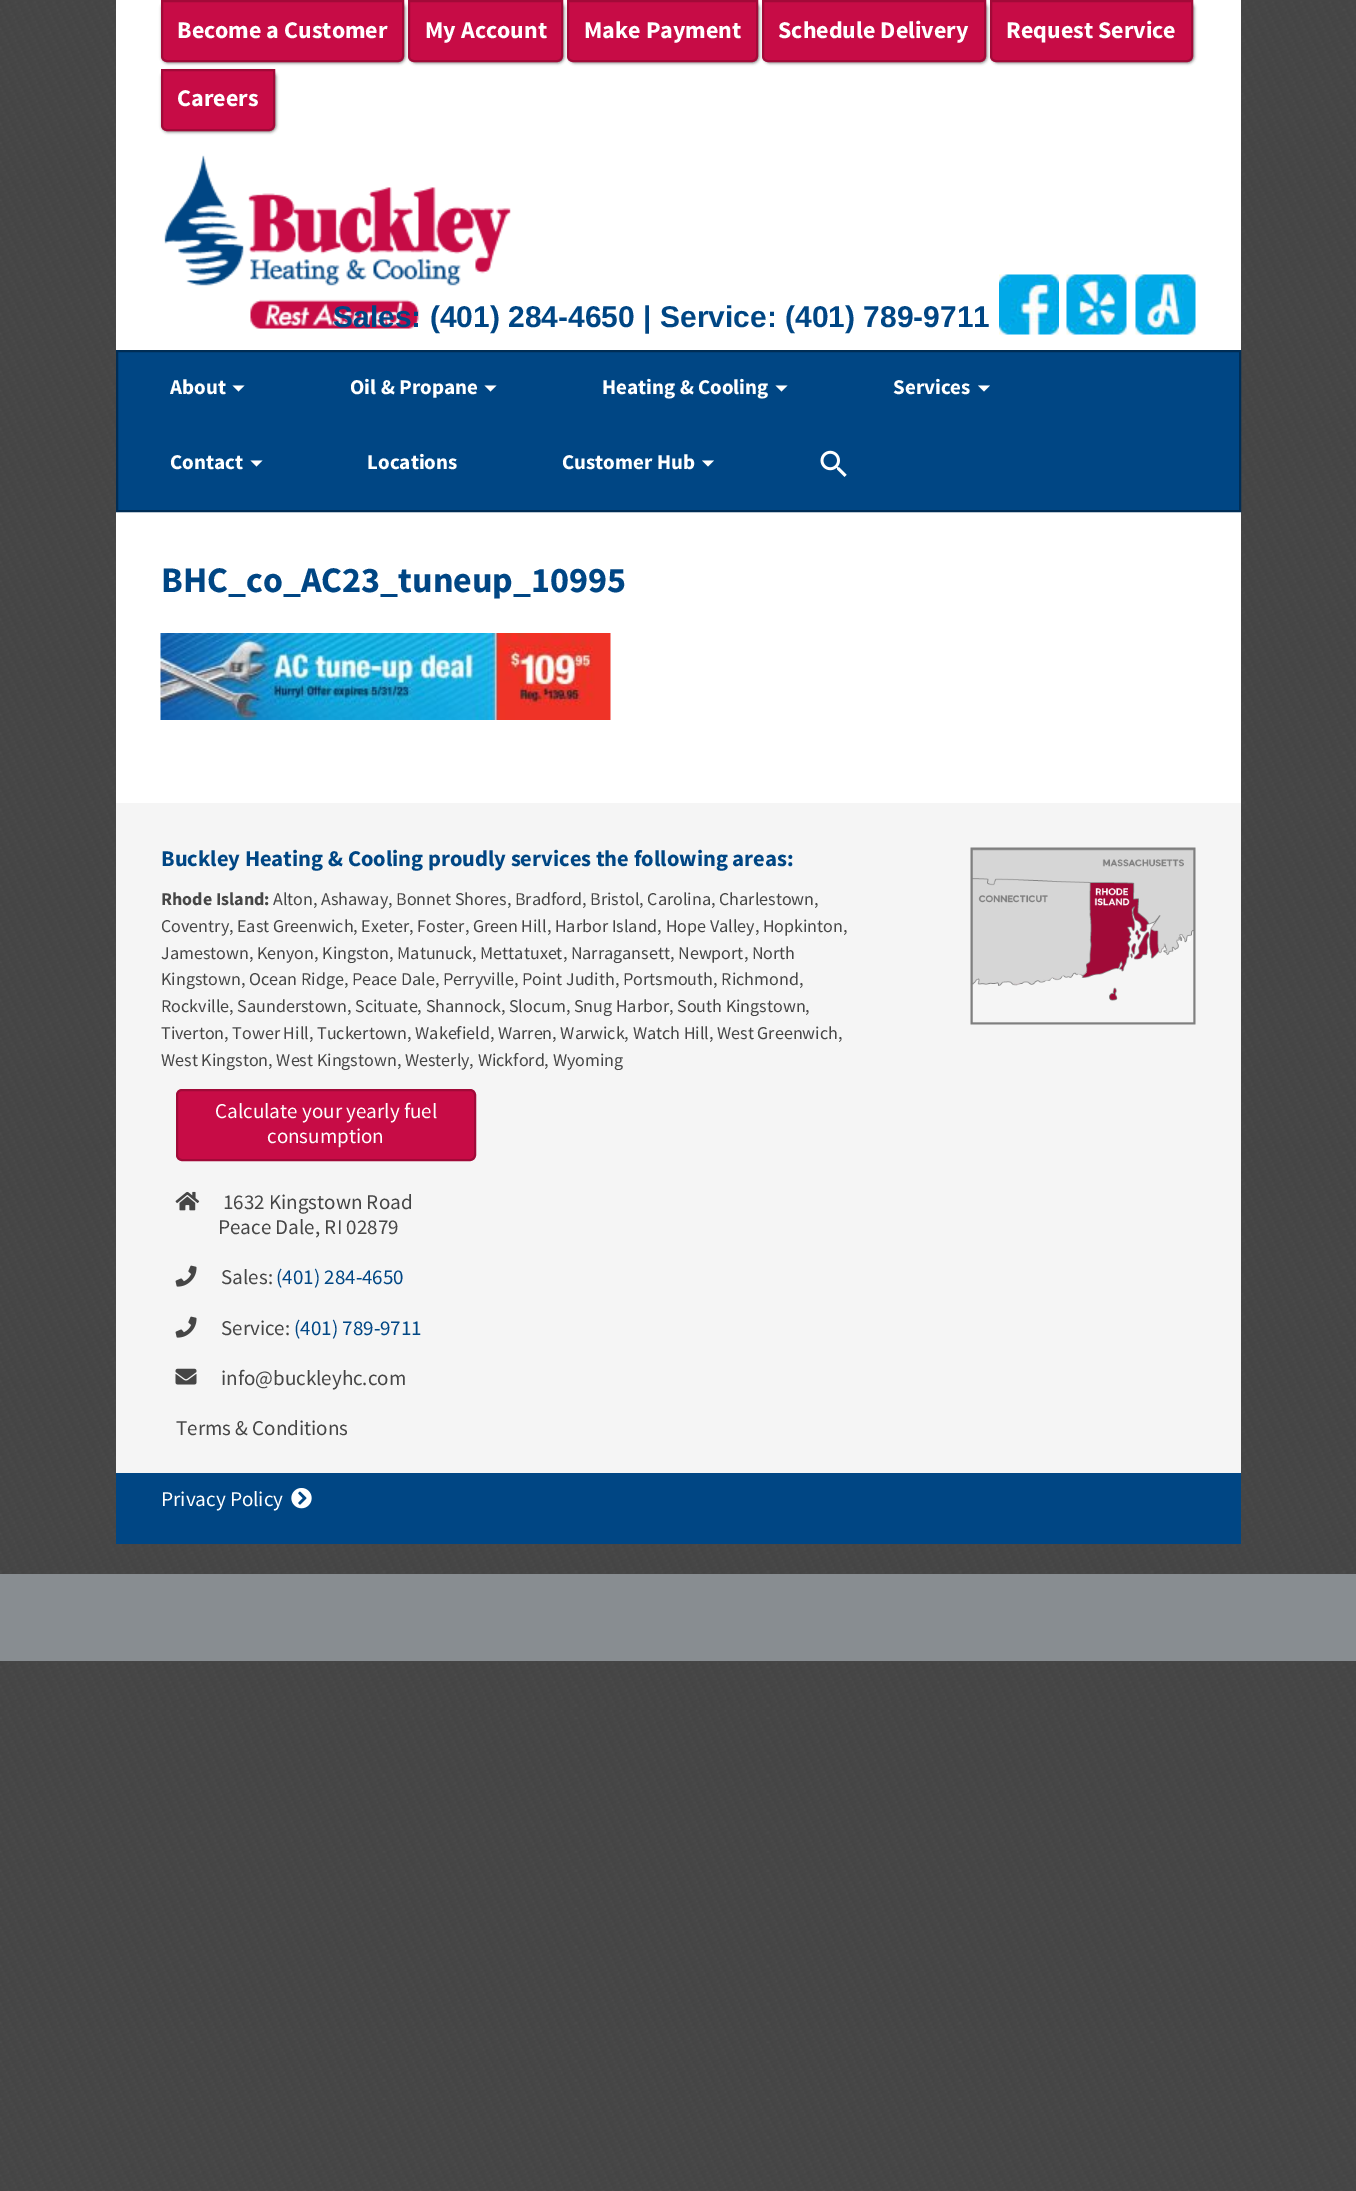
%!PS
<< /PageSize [1356 2191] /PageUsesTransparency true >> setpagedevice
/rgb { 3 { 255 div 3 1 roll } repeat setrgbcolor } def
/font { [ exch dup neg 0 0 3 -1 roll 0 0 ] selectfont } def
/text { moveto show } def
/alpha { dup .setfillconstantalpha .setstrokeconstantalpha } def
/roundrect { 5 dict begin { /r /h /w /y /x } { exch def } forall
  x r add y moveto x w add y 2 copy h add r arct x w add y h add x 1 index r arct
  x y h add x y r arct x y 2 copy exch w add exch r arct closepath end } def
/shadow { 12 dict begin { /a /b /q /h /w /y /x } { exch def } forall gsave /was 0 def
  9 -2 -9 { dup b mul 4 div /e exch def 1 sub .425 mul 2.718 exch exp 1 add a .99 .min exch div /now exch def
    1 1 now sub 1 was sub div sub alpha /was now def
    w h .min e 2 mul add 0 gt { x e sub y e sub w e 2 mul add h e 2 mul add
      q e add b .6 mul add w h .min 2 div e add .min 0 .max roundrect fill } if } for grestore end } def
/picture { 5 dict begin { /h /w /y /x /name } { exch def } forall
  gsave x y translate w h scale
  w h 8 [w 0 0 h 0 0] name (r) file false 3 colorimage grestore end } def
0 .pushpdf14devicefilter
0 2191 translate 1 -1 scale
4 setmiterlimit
255 255 255 rgb
0 0 1356 2191 rectfill
(img_01.rgb) 0 0 1356 2191 picture
116 0 1125 803 rectfill
0 0 0 rgb
162 2 243 61 6 1.5 0.5 shadow
199 12 70 rgb
162 1 moveto 241 0 rlineto 0 55 rlineto 0 3 -2 5 -5 5 rcurveto -231 0 rlineto -3 0 -5 -2 -5 -5 rcurveto closepath gsave fill grestore
161 10 56 rgb
2 setlinewidth
stroke
0 0 0 rgb
410 2 154 61 6 1.5 0.5 shadow
199 12 70 rgb
409 1 moveto 153 0 rlineto 0 55 rlineto 0 3 -2 5 -5 5 rcurveto -143 0 rlineto -3 0 -5 -2 -5 -5 rcurveto closepath gsave fill grestore
161 10 56 rgb
stroke
0 0 0 rgb
569 2 190 61 6 1.5 0.5 shadow
199 12 70 rgb
568 1 moveto 189 0 rlineto 0 55 rlineto 0 3 -2 5 -5 5 rcurveto -179 0 rlineto -3 0 -5 -2 -5 -5 rcurveto closepath gsave fill grestore
161 10 56 rgb
stroke
0 0 0 rgb
764 2 223 61 6 1.5 0.5 shadow
199 12 70 rgb
763 1 moveto 222 0 rlineto 0 55 rlineto 0 3 -2 5 -5 5 rcurveto -212 0 rlineto -3 0 -5 -2 -5 -5 rcurveto closepath gsave fill grestore
161 10 56 rgb
stroke
0 0 0 rgb
992 2 202 61 6 1.5 0.5 shadow
199 12 70 rgb
991 1 moveto 201 0 rlineto 0 55 rlineto 0 3 -2 5 -5 5 rcurveto -191 0 rlineto -3 0 -5 -2 -5 -5 rcurveto closepath gsave fill grestore
161 10 56 rgb
stroke
0 0 0 rgb
162 71 114 61 6 1.5 0.5 shadow
199 12 70 rgb
162 70 moveto 112 0 rlineto 0 55 rlineto 0 3 -2 5 -5 5 rcurveto -102 0 rlineto -3 0 -5 -2 -5 -5 rcurveto closepath gsave fill grestore
161 10 56 rgb
stroke
(img_02.rgb) 164 155 347 174 picture
(img_03.rgb) 999 274 60 61 picture
(img_04.rgb) 1066 274 61 61 picture
(img_05.rgb) 1135 274 61 61 picture
0 70 132 rgb
117 351 moveto 1123 0 rlineto 0 160 rlineto -1123 0 rlineto closepath gsave fill grestore
0 45 85 rgb
stroke
255 255 255 rgb
232.5 385.5 moveto 12 0 rlineto -6 6 rlineto closepath fill
484.5 385.5 moveto 12 0 rlineto -6 6 rlineto closepath fill
775.5 385.5 moveto 12 0 rlineto -6 6 rlineto closepath fill
978 385.5 moveto 12 0 rlineto -6 6 rlineto closepath fill
250.5 460.5 moveto 12 0 rlineto -6 6 rlineto closepath fill
702 460.5 moveto 12 0 rlineto -6 6 rlineto closepath fill
(img_06.rgb) 820 450 27 27 picture
(img_07.rgb) 160 633 451 87 picture
245 245 245 rgb
116 803 1125 670 rectfill
(img_08.rgb) 970 847 226 178 picture
199 12 70 rgb
177 1090 298 70 5 roundrect gsave fill grestore
161 10 56 rgb
stroke
(img_09.rgb) 175 1191 25 20 picture
(img_10.rgb) 175 1265 22 22 picture
(img_10.rgb) 175 1316 22 22 picture
(img_11.rgb) 175 1368 22 17 picture
0 70 132 rgb
116 1473 1125 71 rectfill
(img_12.rgb) 291 1488 21 21 picture
136 141 145 rgb
0 1574 1356 87 rectfill
/SourceSansPro-Bold 24 font
255 255 255 rgb
(Become a Customer) 177 38 text
(My Account) 425 38 text
(Make Payment) 584 38 text
(Schedule Delivery) 778 38 text
(Request Service) 1006 38 text
(Careers) 177 106 text
/LiberationSans-Bold 30 font
0 70 132 rgb
(Sales: \(401\) 284-4650 | Service: \(401\) 789-9711) 333 327 text
/SourceSansPro-Bold 21 font
255 255 255 rgb
(About) 170 394 text
(Oil & Propane) 350 394 text
(Heating & Cooling) 602 394 text
(Services) 893 394 text
(Contact) 170 469 text
(Locations) 367 469 text
(Customer Hub) 562 469 text
/SourceSansPro-Bold 36 font
0 70 132 rgb
(BHC_co_AC23_tuneup_10995) 161 592 text
/SourceSansPro-Bold 22.5 font
(Buckley Heating & Cooling proudly services the following areas:) 161 866 text
/SourceSansPro-Bold 18 font
70 70 70 rgb
(Rhode Island:) 161 905 text
/SourceSansPro-Regular 18 font
(Alton, Ashaway, Bonnet Shores, Bradford, Bristol, Carolina, Charlestown,) 273 905 text
(Coventry, East Greenwich, Exeter, Foster, Green Hill, Harbor Island, Hope Valley, Hopkinton,) 161 932 text
(Jamestown, Kenyon, Kingston, Matunuck, Mettatuxet, Narragansett, Newport, North) 161 959 text
(Kingstown, Ocean Ridge, Peace Dale, Perryville, Point Judith, Portsmouth, Richmond,) 161 985 text
(Rockville, Saunderstown, Scituate, Shannock, Slocum, Snug Harbor, South Kingstown,) 161 1012 text
(Tiverton, Tower Hill, Tuckertown, Wakefield, Warren, Warwick, Watch Hill, West Greenwich,) 161 1039 text
(West Kingston, West Kingstown, Westerly, Wickford, Wyoming) 161 1066 text
/SourceSansPro-Regular 21 font
255 255 255 rgb
(Calculate your yearly fuel) 215 1118 text
(consumption) 267 1143 text
70 70 70 rgb
(1632 Kingstown Road) 223 1209 text
(Peace Dale, RI 02879) 218 1234 text
(Sales:) 221 1284 text
0 70 132 rgb
(\(401\) 284-4650) 276 1284 text
70 70 70 rgb
(Service:) 221 1335 text
0 70 132 rgb
(\(401\) 789-9711) 294 1335 text
70 70 70 rgb
(info@buckleyhc.com) 221 1385 text
(Terms & Conditions) 176 1435 text
255 255 255 rgb
(Privacy Policy) 161 1506 text
.poppdf14devicefilter showpage
